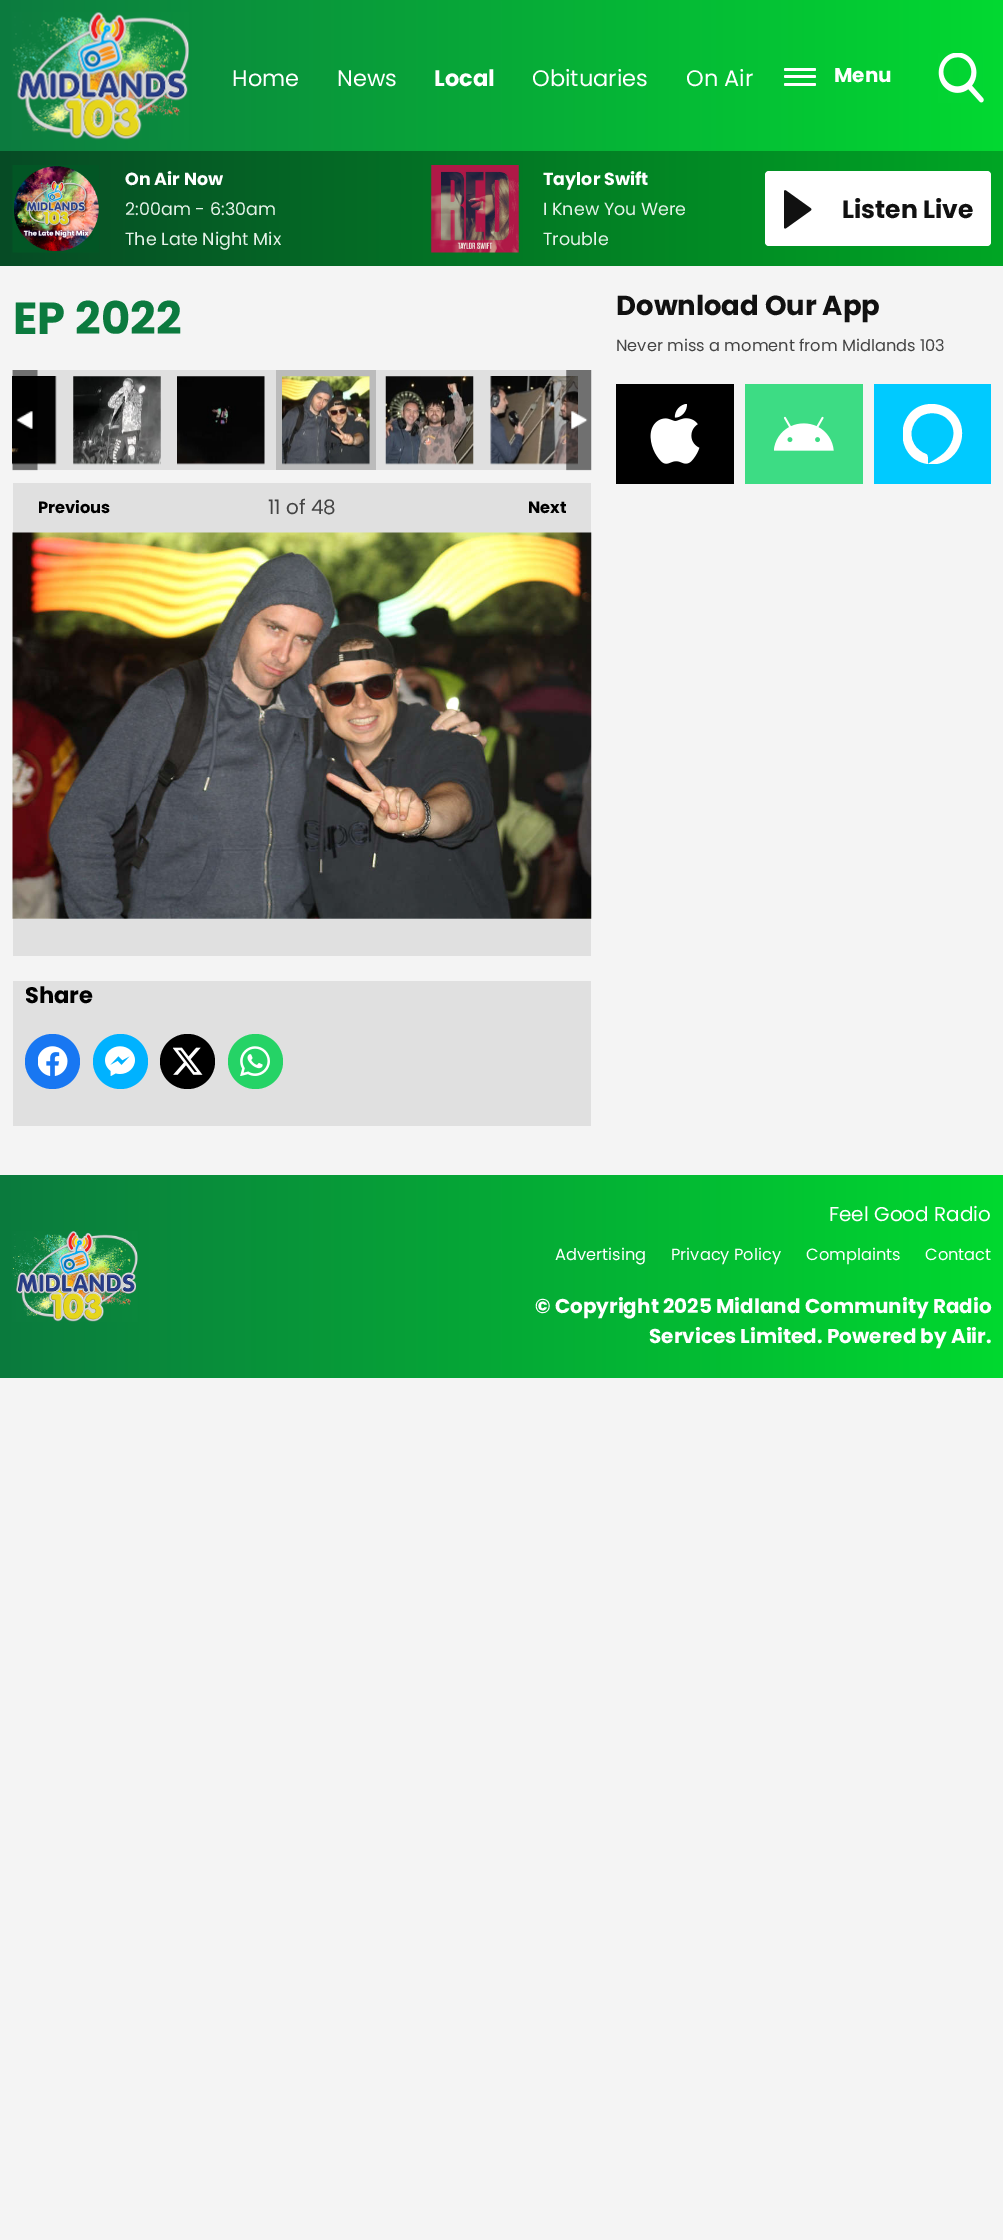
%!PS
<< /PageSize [1003 2240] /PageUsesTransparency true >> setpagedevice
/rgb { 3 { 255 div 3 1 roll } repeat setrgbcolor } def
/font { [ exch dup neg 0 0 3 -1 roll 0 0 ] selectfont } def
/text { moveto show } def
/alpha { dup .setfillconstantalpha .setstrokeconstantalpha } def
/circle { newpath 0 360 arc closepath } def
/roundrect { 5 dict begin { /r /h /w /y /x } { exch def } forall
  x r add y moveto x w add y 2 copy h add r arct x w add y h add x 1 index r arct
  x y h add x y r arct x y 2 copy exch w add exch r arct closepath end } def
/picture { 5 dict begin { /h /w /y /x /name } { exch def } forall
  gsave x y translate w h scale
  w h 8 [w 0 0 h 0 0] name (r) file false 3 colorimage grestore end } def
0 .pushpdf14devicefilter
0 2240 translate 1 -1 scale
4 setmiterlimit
244 244 244 rgb
0 0 1003 2240 rectfill
gsave 0 0 moveto 1003 0 rlineto 0 151 rlineto -1003 0 rlineto closepath clip newpath
<< /ShadingType 2 /ColorSpace /DeviceRGB /Coords [0 76 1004 76] /Extend [true true] /Function << /FunctionType 2 /Domain [0 1] /C0 [0.133 0.525 0.314] /C1 [0.094 0.863 0.263] /N 1 >> >> shfill grestore
0.9 alpha
gsave 0 0 moveto 1003 0 rlineto 0 151 rlineto -1003 0 rlineto closepath clip newpath
<< /ShadingType 2 /ColorSpace /DeviceRGB /Coords [0 76 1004 76] /Extend [true true] /Function << /FunctionType 2 /Domain [0 1] /C0 [0.043 0.478 0.243] /C1 [0 0.851 0.184] /N 1 >> >> shfill grestore
1 alpha
(img_01.rgb) 12 12 177 128 picture
255 255 255 rgb
784 68 32 3 1.5 roundrect fill
784 75 32 3 1.5 roundrect fill
784 83 32 3 1.5 roundrect fill
(img_02.rgb) 938 53 46 50 picture
gsave 0 151 moveto 1003 0 rlineto 0 115 rlineto -1003 0 rlineto closepath clip newpath
<< /ShadingType 2 /ColorSpace /DeviceRGB /Coords [0 209 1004 209] /Extend [true true] /Function << /FunctionType 2 /Domain [0 1] /C0 [0.027 0.294 0.149] /C1 [0 0.651 0.141] /N 1 >> >> shfill grestore
(img_03.rgb) 12 165 87 88 picture
(img_04.rgb) 431 165 88 88 picture
765 171 226 75 4 roundrect fill
(img_05.rgb) 784 190 28 39 picture
224 224 224 rgb
13 370 578 100 rectfill
(img_06.rgb) 12 376 45 89 picture
(img_07.rgb) 73 376 88 89 picture
(img_08.rgb) 177 376 88 89 picture
187 187 187 rgb
276 370 100 100 rectfill
(img_09.rgb) 282 376 88 89 picture
(img_10.rgb) 385 376 89 89 picture
(img_11.rgb) 490 376 88 89 picture
(img_12.rgb) 12 370 26 101 picture
(img_13.rgb) 566 370 26 101 picture
224 224 224 rgb
13 483 578 50 rectfill
(img_14.rgb) 12 532 580 387 picture
13 919 578 37 rectfill
13 981 578 145 rectfill
24 119 242 rgb
52.5 1061.5 27.5 circle fill
(img_15.rgb) 38 1046 30 30 picture
0 178 255 rgb
120.5 1061.5 27.5 circle fill
(img_16.rgb) 105 1046 30 30 picture
0 0 0 rgb
187.5 1061.5 27.5 circle fill
(img_17.rgb) 173 1047 30 28 picture
37 211 102 rgb
255.5 1061.5 27.5 circle fill
(img_18.rgb) 240 1046 30 30 picture
0 0 0 rgb
616 384 118 100 rectfill
(img_19.rgb) 650 404 50 60 picture
61 220 132 rgb
745 384 118 100 rectfill
(img_20.rgb) 774 416 60 35 picture
0 202 255 rgb
874 384 117 100 rectfill
gsave
903 404 60 60 rectclip
255 255 255 rgb
932 404 moveto -37 0 -40 55 -4 60 rcurveto 0 -15 -1 -6 -11 -16 rcurveto -9 -9 -7 -25 4 -32 rcurveto 7 -4 17 -4 24 1 rcurveto 13 9 10 26 -1 36 rcurveto -4 4 -10 7 -16 11 rcurveto 31 4 47 -37 21 -55 rcurveto -5 -3 -11 -5 -17 -5 rcurveto closepath fill
grestore
gsave 0 1175 moveto 1003 0 rlineto 0 203 rlineto -1003 0 rlineto closepath clip newpath
<< /ShadingType 2 /ColorSpace /DeviceRGB /Coords [0 1276 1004 1276] /Extend [true true] /Function << /FunctionType 2 /Domain [0 1] /C0 [0.043 0.478 0.243] /C1 [0 0.851 0.184] /N 1 >> >> shfill grestore
(img_21.rgb) 12 1231 126 91 picture
/Poppins-Regular 22.5 font
255 255 255 rgb
(Home) 232 86 text
(News) 337 86 text
/Poppins-Bold 22.5 font
(Local) 434 86 text
/Poppins-Regular 22.5 font
(Obituaries) 532 86 text
(On Air) 686 86 text
/Poppins-Bold 20 font
(Menu) 834 82 text
/Poppins-Bold 17.5 font
(On Air Now) 125 185 text
/Poppins-Regular 17.5 font
230 243 233 rgb
(2:00am -) 125 215 text
(6:30am) 210 215 text
(The Late Night Mix) 125 245 text
/Poppins-Bold 17.5 font
255 255 255 rgb
(Taylor Swift) 543 185 text
/Poppins-Regular 17.5 font
230 243 233 rgb
(I Knew You Were) 543 215 text
(Trouble) 543 245 text
/Poppins-Bold 25 font
17 17 17 rgb
(Listen Live) 842 218 text
/Poppins-Bold 45 font
11 122 62 rgb
(EP 2022) 13 334 text
/Poppins-Bold 16.25 font
0 0 0 rgb
(Previous) 38 513 text
/Poppins-Regular 20 font
68 68 68 rgb
(11 of 48) 268 514 text
/Poppins-Bold 16.25 font
0 0 0 rgb
(Next) 528 513 text
/Poppins-Bold 22.5 font
(Share) 25 1003 text
/Poppins-Bold 27.5 font
17 17 17 rgb
(Download Our App) 616 315 text
/Poppins-Regular 16.25 font
68 68 68 rgb
(Never miss a moment from Midlands 103) 616 351 text
/Poppins-Regular 20 font
255 255 255 rgb
(Feel Good Radio) 829 1221 text
/Poppins-Regular 16.25 font
(Advertising) 555 1260 text
(Privacy Policy) 671 1260 text
(Complaints) 806 1260 text
(Contact) 925 1260 text
/Poppins-Bold 20 font
(© Copyright 2025 Midland Community Radio) 535 1313 text
(Services Limited. Powered by Aiir.) 649 1343 text
.poppdf14devicefilter showpage
